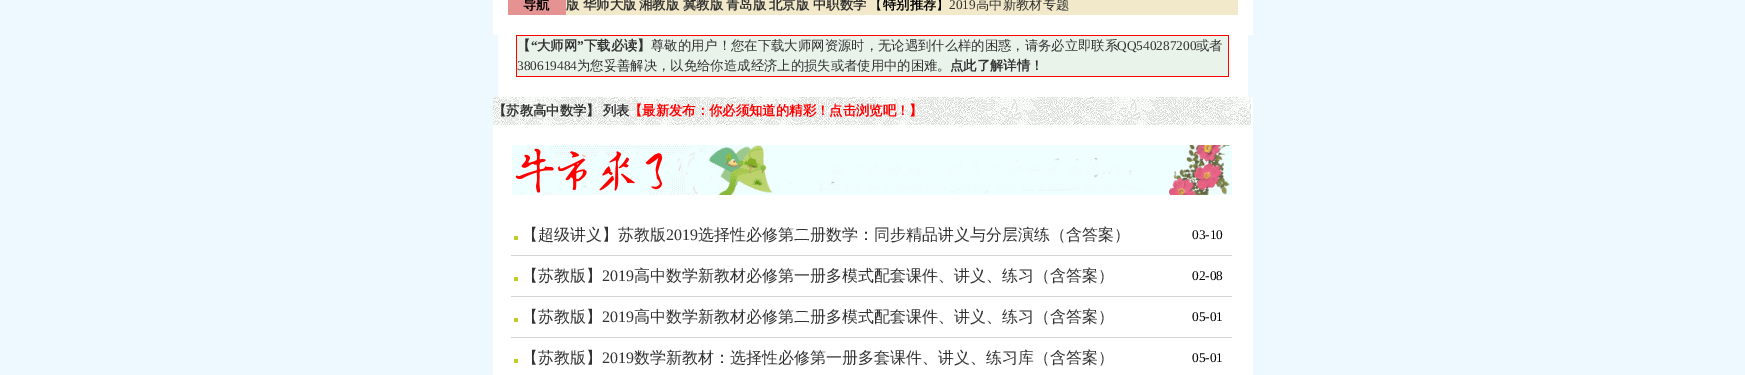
%!PS
<< /PageSize [1745 375] >> setpagedevice
/rgb { 3 { 255 div 3 1 roll } repeat setrgbcolor } def
/font { [ exch dup neg 0 0 3 -1 roll 0 0 ] selectfont } def
/text { moveto show } def
/picture { 5 dict begin { /h /w /y /x /name } { exch def } forall
  gsave x y translate w h scale
  w h 8 [w 0 0 h 0 0] name (r) file false 3 colorimage grestore end } def
0 375 translate 1 -1 scale
4 setmiterlimit
238 249 255 rgb
0 0 1745 375 rectfill
255 255 255 rgb
493 0 760 35 rectfill
228 146 146 rgb
508 0 58 15 rectfill
241 233 201 rgb
566 0 672 15 rectfill
255 255 255 rgb
498 35 750 62 rectfill
255 0 0 rgb
516 35 713 1 rectfill
1228 35 1 42 rectfill
516 76 713 1 rectfill
516 35 1 42 rectfill
233 243 234 rgb
517 36 711 40 rectfill
255 255 255 rgb
493 97 760 278 rectfill
(img_01.rgb) 493 97 758 28 picture
(img_02.rgb) 512 145 720 50 picture
191 204 42 rgb
514 236 4 4 rectfill
212 212 212 rgb
511 255 721 1 rectfill
191 204 42 rgb
514 277 4 4 rectfill
212 212 212 rgb
511 296 721 1 rectfill
191 204 42 rgb
514 318 4 4 rectfill
212 212 212 rgb
511 337 721 1 rectfill
191 204 42 rgb
514 359 4 4 rectfill
/WenQuanYiZenHei-Bold 13.35 font
0 0 0 rgb
(导航) 523 9 text
51 51 51 rgb
(版) 566 9 text
(华师大版) 583 9 text
(湘教版) 639 9 text
(冀教版) 683 9 text
(青岛版) 726 9 text
(北京版) 769 9 text
(中职数学) 813 9 text
/WenQuanYiZenHei-Medium 13.35 font
0 0 0 rgb
(【) 869 9 text
/WenQuanYiZenHei-Bold 13.35 font
(特别推荐) 883 9 text
/WenQuanYiZenHei-Medium 13.35 font
(】) 936 9 text
/LiberationSerif-Regular 13.35 font
51 51 51 rgb
(2019) 949 9 text
/WenQuanYiZenHei-Medium 13.35 font
(高中新教材专题) 976 9 text
/WenQuanYiZenHei-Bold 13.35 font
(【) 517 50 text
/LiberationSerif-Bold 13.35 font
(“) 531 50 text
/WenQuanYiZenHei-Bold 13.35 font
(大师网) 537 50 text
/LiberationSerif-Bold 13.35 font
(”) 577 50 text
/WenQuanYiZenHei-Bold 13.35 font
(下载必读】) 584 50 text
/WenQuanYiZenHei-Medium 13.35 font
(尊敬的用户！您在下载大师网资源时，无论遇到什么样的困惑，请务必立即联系) 651 50 text
/LiberationSerif-Regular 13.35 font
(QQ540287200) 1117 50 text
/WenQuanYiZenHei-Medium 13.35 font
(或者) 1196 50 text
/LiberationSerif-Regular 13.35 font
(380619484) 517 70 text
/WenQuanYiZenHei-Medium 13.35 font
(为您妥善解决，以免给你造成经济上的损失或者使用中的困难。) 577 70 text
/WenQuanYiZenHei-Bold 13.35 font
(点此了解详情！) 950 70 text
493 115 moveto -1 0 32 (【苏教高中数学】 列表) widthshow
255 0 0 rgb
(【最新发布：你必须知道的精彩！点击浏览吧！】) 629 115 text
/WenQuanYiZenHei-Medium 16 font
51 51 51 rgb
(【超级讲义】苏教版) 522 240 text
/LiberationSerif-Regular 16 font
(2019) 666 240 text
/WenQuanYiZenHei-Medium 16 font
(选择性必修第二册数学：同步精品讲义与分层演练（含答案）) 698 240 text
/LiberationSerif-Regular 13.35 font
0 0 0 rgb
(03-10) 1192 239 text
/WenQuanYiZenHei-Medium 16 font
51 51 51 rgb
(【苏教版】) 522 281 text
/LiberationSerif-Regular 16 font
(2019) 602 281 text
/WenQuanYiZenHei-Medium 16 font
(高中数学新教材必修第一册多模式配套课件、讲义、练习（含答案）) 634 281 text
/LiberationSerif-Regular 13.35 font
0 0 0 rgb
(02-08) 1192 280 text
/WenQuanYiZenHei-Medium 16 font
51 51 51 rgb
(【苏教版】) 522 322 text
/LiberationSerif-Regular 16 font
(2019) 602 322 text
/WenQuanYiZenHei-Medium 16 font
(高中数学新教材必修第二册多模式配套课件、讲义、练习（含答案）) 634 322 text
/LiberationSerif-Regular 13.35 font
0 0 0 rgb
(05-01) 1192 321 text
/WenQuanYiZenHei-Medium 16 font
51 51 51 rgb
(【苏教版】) 522 363 text
/LiberationSerif-Regular 16 font
(2019) 602 363 text
/WenQuanYiZenHei-Medium 16 font
(数学新教材：选择性必修第一册多套课件、讲义、练习库（含答案）) 634 363 text
/LiberationSerif-Regular 13.35 font
0 0 0 rgb
(05-01) 1192 362 text
showpage
